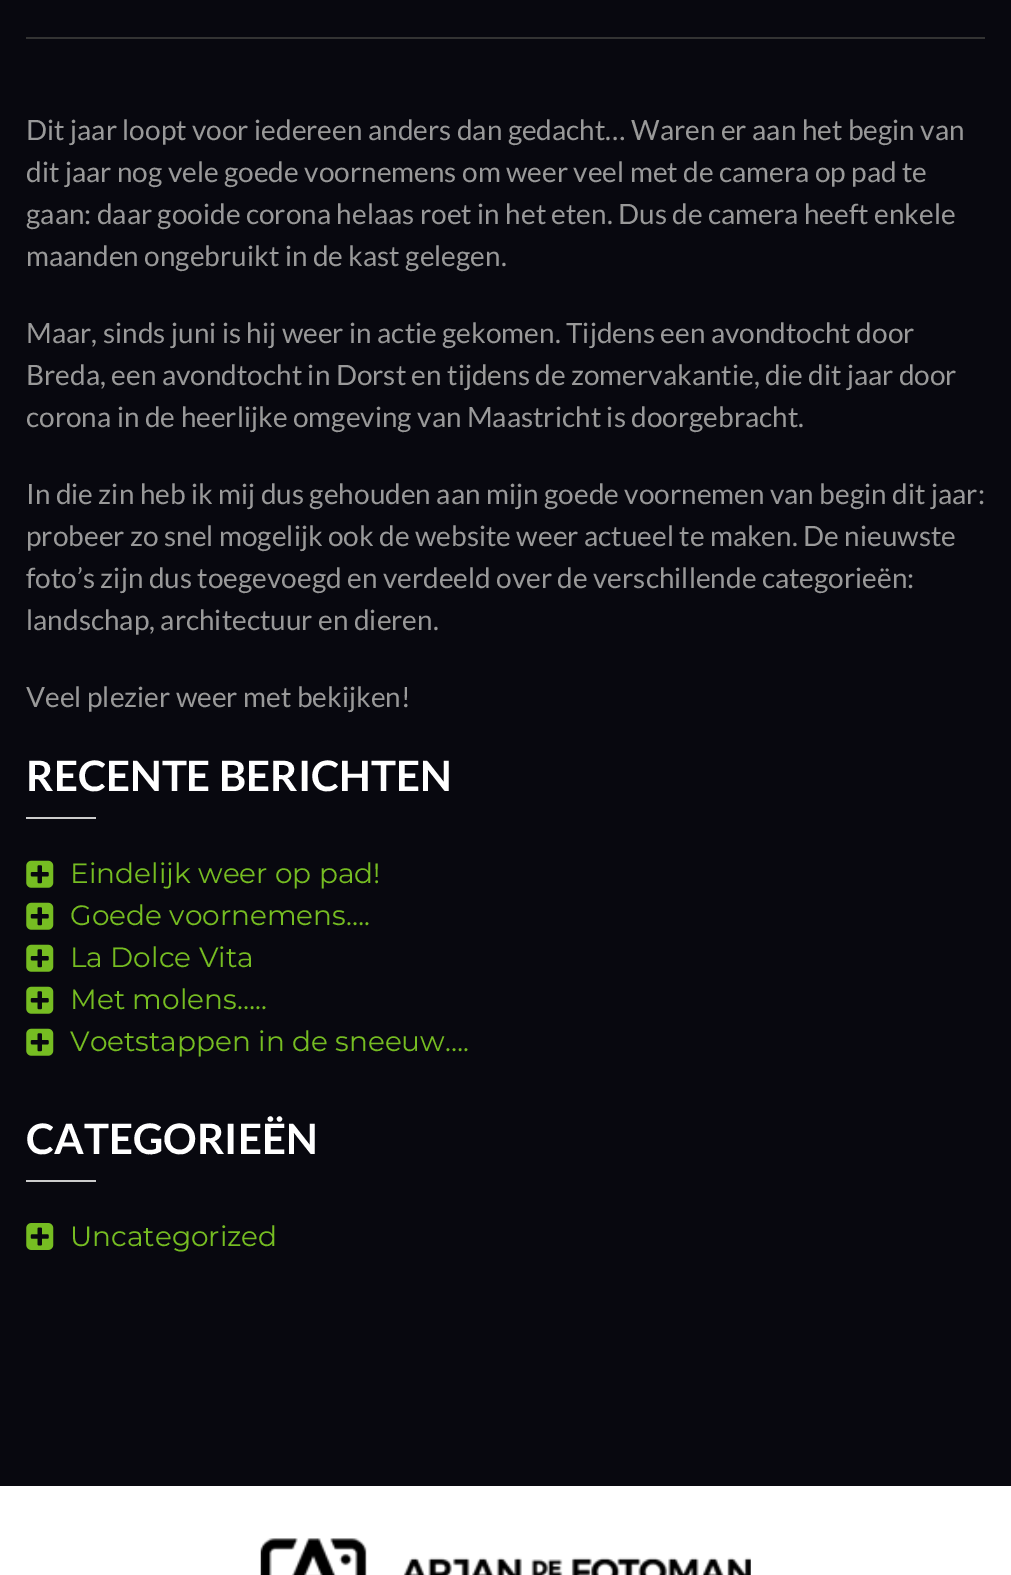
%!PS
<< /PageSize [1011 1575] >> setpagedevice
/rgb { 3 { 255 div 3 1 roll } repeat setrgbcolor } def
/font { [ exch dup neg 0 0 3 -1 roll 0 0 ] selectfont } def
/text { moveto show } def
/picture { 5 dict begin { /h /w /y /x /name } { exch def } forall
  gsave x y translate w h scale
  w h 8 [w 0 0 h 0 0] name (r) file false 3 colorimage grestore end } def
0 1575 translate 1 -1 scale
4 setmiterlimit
255 255 255 rgb
0 0 1011 1575 rectfill
8 8 15 rgb
0 0 1011 1486 rectfill
51 51 51 rgb
26 37 959 2 rectfill
204 204 204 rgb
26 817 70 2 rectfill
(img_01.rgb) 26 860 28 28 picture
(img_01.rgb) 26 902 28 28 picture
(img_01.rgb) 26 944 28 28 picture
(img_01.rgb) 26 986 28 28 picture
(img_01.rgb) 26 1028 28 28 picture
26 1180 70 2 rectfill
(img_02.rgb) 26 1223 28 27 picture
(img_03.rgb) 260 1538 491 37 picture
/Lato-Regular 28 font
153 153 153 rgb
(Dit jaar loopt voor iedereen anders dan gedacht… Waren er aan het begin van) 26 140 text
(dit jaar nog vele goede voornemens om weer veel met de camera op pad te) 26 182 text
(gaan: daar gooide corona helaas roet in het eten. Dus de camera heeft enkele) 26 224 text
(maanden ongebruikt in de kast gelegen.) 26 266 text
(Maar, sinds juni is hij weer in actie gekomen. Tijdens een avondtocht door) 26 343 text
(Breda, een avondtocht in Dorst en tijdens de zomervakantie, die dit jaar door) 26 385 text
(corona in de heerlijke omgeving van Maastricht is doorgebracht.) 26 427 text
(In die zin heb ik mij dus gehouden aan mijn goede voornemen van begin dit jaar:) 26 504 text
(probeer zo snel mogelijk ook de website weer actueel te maken. De nieuwste) 26 546 text
(foto’s zijn dus toegevoegd en verdeeld over de verschillende categorieën:) 26 588 text
(landschap, architectuur en dieren.) 26 630 text
(Veel plezier weer met bekijken!) 26 707 text
/Lato-Bold 42 font
255 255 255 rgb
(RECENTE BERICHTEN) 26 791 text
/Montserrat-Regular 28 font
118 189 34 rgb
(Eindelijk weer op pad!) 70 883 text
(Goede voornemens….) 70 925 text
(La Dolce Vita) 70 967 text
(Met molens…..) 70 1009 text
(Voetstappen in de sneeuw….) 70 1051 text
/Lato-Bold 42 font
255 255 255 rgb
(CATEGORIEËN) 26 1154 text
/Montserrat-Regular 28 font
118 189 34 rgb
(Uncategorized) 70 1246 text
showpage
